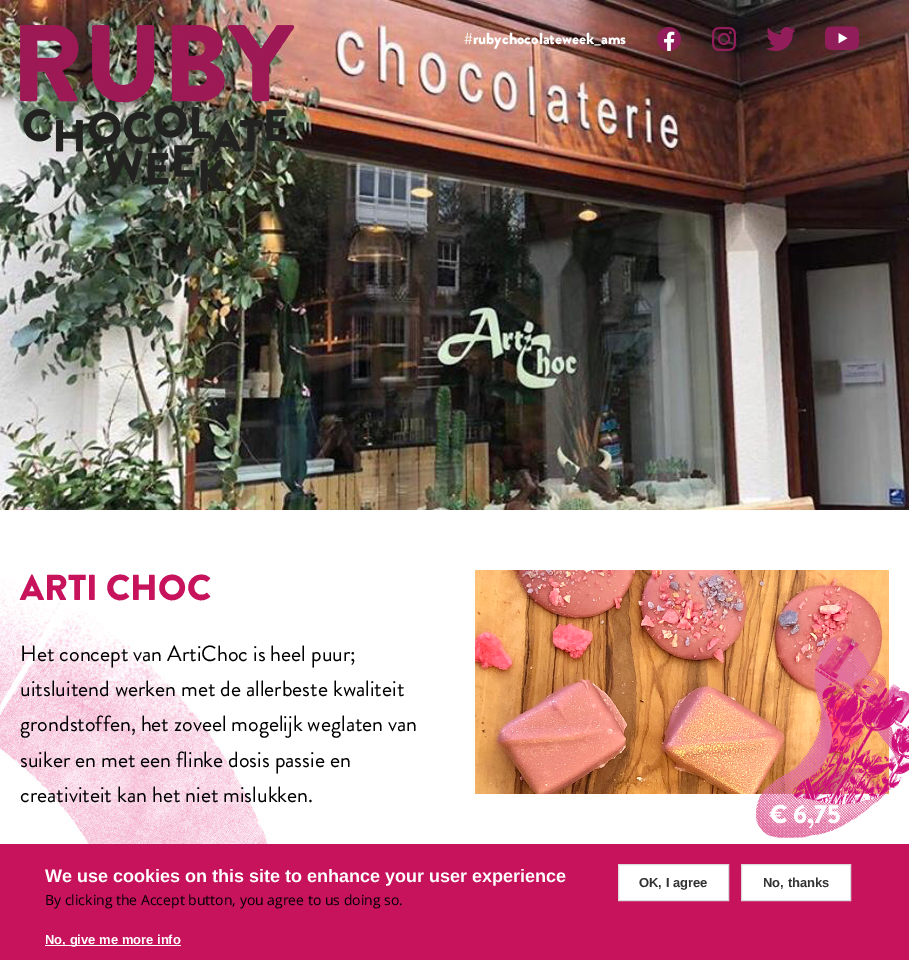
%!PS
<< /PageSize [909 960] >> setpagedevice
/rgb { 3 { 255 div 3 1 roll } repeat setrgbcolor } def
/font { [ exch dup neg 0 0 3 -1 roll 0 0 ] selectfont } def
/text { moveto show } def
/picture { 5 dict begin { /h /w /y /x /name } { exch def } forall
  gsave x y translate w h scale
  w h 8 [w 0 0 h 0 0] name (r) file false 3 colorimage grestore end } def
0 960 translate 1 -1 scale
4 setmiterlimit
255 255 255 rgb
0 0 909 960 rectfill
(img_05.rgb) 0 0 909 510 picture
(img_01.rgb) 657 27 24 24 picture
(img_02.rgb) 712 27 24 24 picture
(img_03.rgb) 766 27 29 24 picture
(img_04.rgb) 825 26 34 24 picture
(img_06.rgb) 20 25 274 166 picture
(img_07.rgb) 475 570 414 224 picture
(img_08.rgb) 755 632 154 206 picture
(img_09.rgb) 0 579 296 265 picture
199 18 92 rgb
0 844 909 116 rectfill
255 255 255 rgb
45 945 136 1 rectfill
618.5 864.5 moveto 110 0 rlineto 0 36 rlineto -110 0 rlineto closepath gsave fill grestore
219 219 219 rgb
stroke
255 255 255 rgb
741.5 864.5 moveto 109 0 rlineto 0 36 rlineto -109 0 rlineto closepath gsave fill grestore
219 219 219 rgb
stroke
/BrandonGrotesque-Black 16 font
255 255 255 rgb
(#rubychocolateweek_ams) 464 44 text
/BrandonGrotesque-Black 36 font
199 18 92 rgb
(ARTI CHOC) 20 600 text
/BrandonGrotesque-Regular 22 font
0 0 0 rgb
(Het concept van ArtiChoc is heel puur;) 20 661 text
(uitsluitend werken met de allerbeste kwaliteit) 20 696 text
(grondstoffen, het zoveel mogelijk weglaten van) 20 731 text
(suiker en met een flinke dosis passie en) 20 767 text
(creativiteit kan het niet mislukken.) 20 802 text
/BrandonGrotesque-Black 26 font
255 255 255 rgb
(€ 6,75) 769 823 text
/LiberationSans-Bold 18 font
(We use cookies on this site to enhance your user experience) 45 882 text
/OpenSans-Regular 14 font
0 0 0 rgb
(By clicking the Accept button, you agree to us doing so.) 45 905 text
/LiberationSans-Bold 13 font
255 255 255 rgb
(No, give me more info) 45 944 text
51 51 51 rgb
(OK, I agree) 639 887 text
(No, thanks) 763 887 text
showpage
